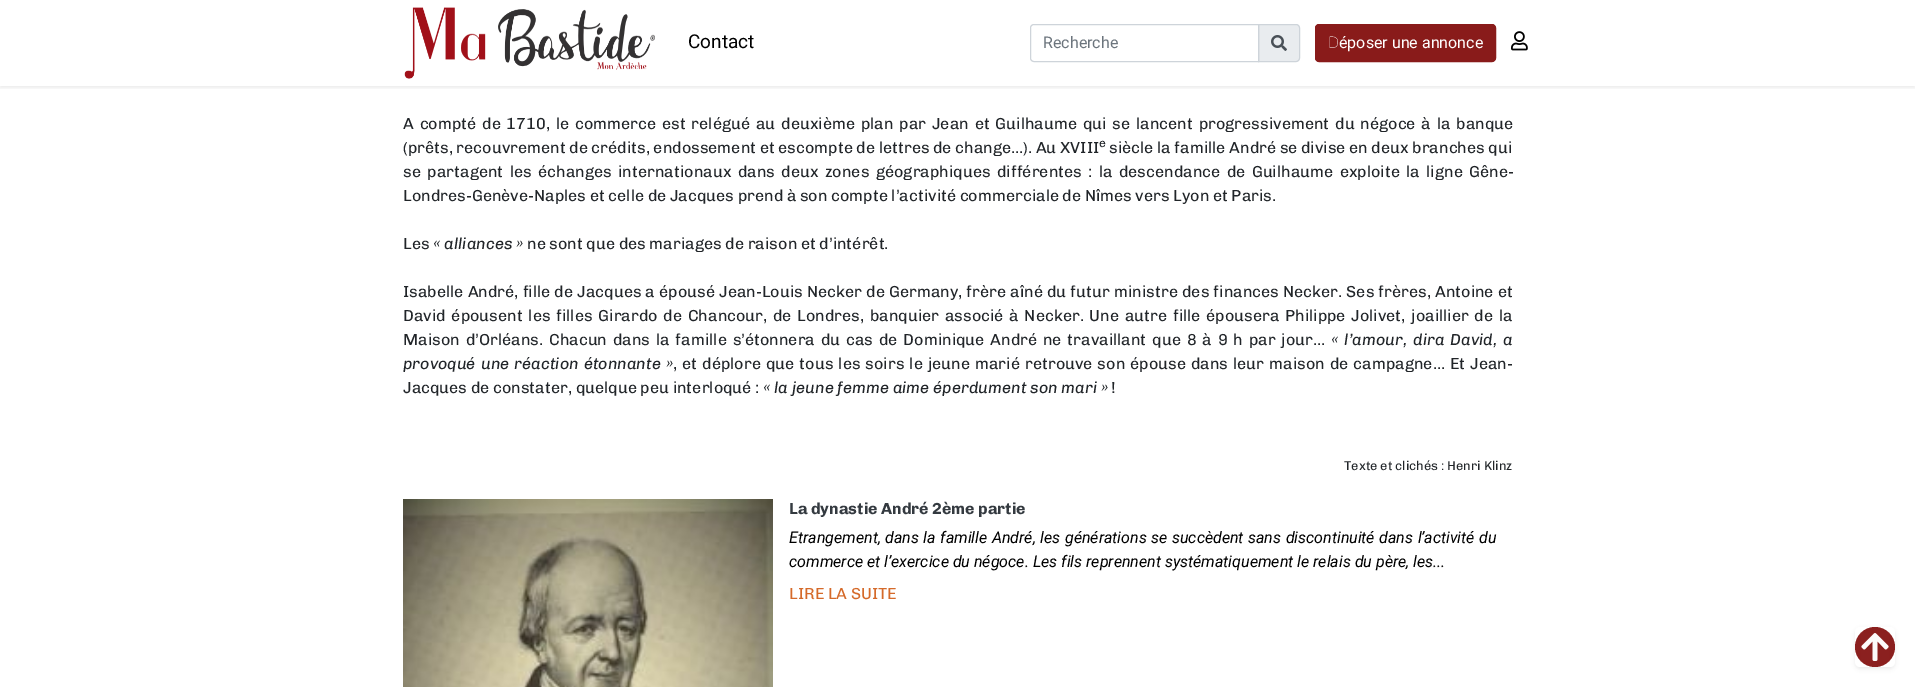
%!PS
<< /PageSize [1915 687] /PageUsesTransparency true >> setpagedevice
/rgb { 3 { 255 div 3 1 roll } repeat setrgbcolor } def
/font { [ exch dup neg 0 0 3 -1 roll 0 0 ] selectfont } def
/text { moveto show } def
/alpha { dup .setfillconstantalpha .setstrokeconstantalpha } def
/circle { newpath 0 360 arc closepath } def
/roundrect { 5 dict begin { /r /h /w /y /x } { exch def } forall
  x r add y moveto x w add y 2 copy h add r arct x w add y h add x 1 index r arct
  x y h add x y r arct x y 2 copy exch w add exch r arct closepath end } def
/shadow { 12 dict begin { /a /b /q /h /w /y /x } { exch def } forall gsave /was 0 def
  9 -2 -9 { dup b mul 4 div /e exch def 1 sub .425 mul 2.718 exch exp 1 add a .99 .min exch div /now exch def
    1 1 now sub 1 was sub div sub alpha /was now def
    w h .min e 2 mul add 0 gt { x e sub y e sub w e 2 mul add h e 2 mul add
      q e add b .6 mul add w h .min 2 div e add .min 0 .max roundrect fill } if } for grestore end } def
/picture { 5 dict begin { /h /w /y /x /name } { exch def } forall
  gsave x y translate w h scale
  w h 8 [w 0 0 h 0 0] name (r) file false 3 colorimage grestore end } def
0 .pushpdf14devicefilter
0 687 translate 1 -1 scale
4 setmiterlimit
255 255 255 rgb
0 0 1915 687 rectfill
gsave
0 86 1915 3 rectclip
0 0 0 rgb
0 2 1915 86 0 2 0.07 shadow
grestore
(img_01.rgb) 404 7 251 72 picture
233 236 239 rgb
1258.5 24.5 moveto 37.5 0 rlineto 2 0 3.5 1.5 3.5 3.5 rcurveto 0 30 rlineto 0 2 -1.5 3.5 -3.5 3.5 rcurveto -37.5 0 rlineto closepath gsave fill grestore
206 212 218 rgb
stroke
1034 24.5 moveto 224.5 0 rlineto 0 37 rlineto -224.5 0 rlineto -2 0 -3.5 -1.5 -3.5 -3.5 rcurveto 0 -30 rlineto 0 -2 1.5 -3.5 3.5 -3.5 rcurveto closepath stroke
(img_02.rgb) 1271 35 16 16 picture
137 27 26 rgb
1315.5 24.5 180 37 3.5 roundrect gsave fill grestore
stroke
(img_03.rgb) 1511 31 17 20 picture
(img_04.rgb) 403 499 370 188 picture
0 0 0 rgb
1855 629 40 40 5 2 0.07 shadow
255 255 255 rgb
1855 627 40 40 5 roundrect fill
(img_05.rgb) 1864 636 22 23 picture
0.98 alpha
137 27 26 rgb
1875 647 20 circle fill
1 alpha
(img_06.rgb) 1861 633 28 28 picture
/Roboto-Regular 19 font
0 0 0 rgb
(Contact) 688 48 text
/Roboto-Regular 16 font
108 117 125 rgb
(Recherche) 1043 48 text
/NotoSans-Thin 16 font
255 255 255 rgb
(D) 1328 48 text
/Roboto-Regular 16 font
(époser une annonce) 1339 48 text
/Chivo-Regular 16 font
33 37 41 rgb
403 129 moveto 2.2 0 32 (A compté de 1710, le commerce est relégué au deuxième plan par Jean et Guilhaume qui se lancent progressivement du négoce à la banque) widthshow
(\(prêts, recouvrement de crédits, endossement et escompte de lettres de change…\). Au XVIII) 403 153 text
/Chivo-Regular 12 font
(e) 1099 147 text
/Chivo-Regular 16 font
(siècle la famille André se divise en deux branches qui) 1109 153 text
403 177 moveto 2.75 0 32 (se partagent les échanges internationaux dans deux zones géographiques différentes : la descendance de Guilhaume exploite la ligne Gêne-) widthshow
(Londres-Genève-Naples et celle de Jacques prend à son compte l’activité commerciale de Nîmes vers Lyon et Paris.) 403 201 text
(Les) 403 249 text
/Chivo-Italic 16 font
(« alliances ») 433 249 text
/Chivo-Regular 16 font
(ne sont que des mariages de raison et d’intérêt.) 527 249 text
403 297 moveto 0.5 0 32 (Isabelle André, fille de Jacques a épousé Jean-Louis Necker de Germany, frère aîné du futur ministre des finances Necker. Ses frères, Antoine et) widthshow
403 321 moveto 2.1 0 32 (David épousent les filles Girardo de Chancour, de Londres, banquier associé à Necker. Une autre fille épousera Philippe Jolivet, joaillier de la) widthshow
403 345 moveto 2.2 0 32 (Maison d’Orléans. Chacun dans la famille s’étonnera du cas de Dominique André ne travaillant que 8 à 9 h par jour…) widthshow
/Chivo-Italic 16 font
1331 345 moveto 2.2 0 32 (« l’amour, dira David, a) widthshow
403 369 moveto 1.4 0 32 (provoqué une réaction étonnante ») widthshow
/Chivo-Regular 16 font
673 369 moveto 1.4 0 32 (, et déplore que tous les soirs le jeune marié retrouve son épouse dans leur maison de campagne… Et Jean-) widthshow
(Jacques de constater, quelque peu interloqué :) 403 393 text
/Chivo-Italic 16 font
(« la jeune femme aime éperdument son mari ») 763 393 text
/Chivo-Regular 16 font
(!) 1111 393 text
/Chivo-Regular 12.75 font
(Texte et clichés : Henri Klinz) 1344 470 text
/Chivo-Bold 16 font
52 58 64 rgb
(La dynastie André 2ème partie) 789 514 text
/Roboto-Italic 16 font
0 0 0 rgb
789 543 moveto 0.6 0 32 (Etrangement, dans la famille André, les générations se succèdent sans discontinuité dans l’activité du) widthshow
(commerce et l’exercice du négoce. Les fils reprennent systématiquement le relais du père, les...) 789 567 text
/Chivo-Regular 16 font
213 106 42 rgb
(LIRE LA SUITE) 789 599 text
.poppdf14devicefilter showpage
